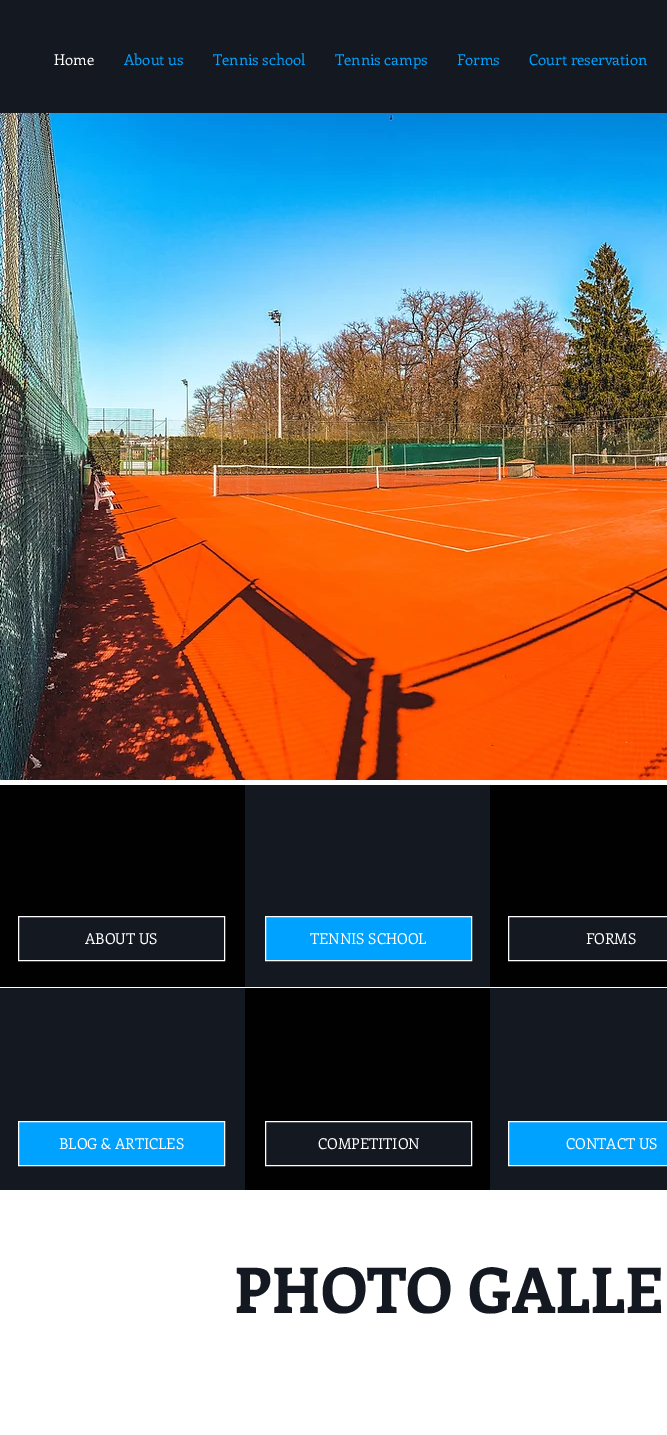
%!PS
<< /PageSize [667 1435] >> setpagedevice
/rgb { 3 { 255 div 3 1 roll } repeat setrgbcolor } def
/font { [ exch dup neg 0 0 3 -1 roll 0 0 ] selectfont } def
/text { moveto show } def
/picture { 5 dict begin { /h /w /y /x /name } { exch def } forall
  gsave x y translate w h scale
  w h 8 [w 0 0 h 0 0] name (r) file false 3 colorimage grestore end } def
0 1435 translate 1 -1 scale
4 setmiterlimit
255 255 255 rgb
0 0 667 1435 rectfill
20 24 33 rgb
0 0 667 113 rectfill
(img_01.rgb) 0 113 667 667 picture
1 1 1 rgb
0 785 245 202 rectfill
20 24 33 rgb
18.5 916.5 moveto 206 0 rlineto 0 44 rlineto -206 0 rlineto closepath gsave fill grestore
255 255 255 rgb
stroke
20 24 33 rgb
245 785 245 202 rectfill
0 162 255 rgb
265.5 916.5 moveto 206 0 rlineto 0 44 rlineto -206 0 rlineto closepath gsave fill grestore
255 255 255 rgb
stroke
1 1 1 rgb
490 785 177 202 rectfill
20 24 33 rgb
508.5 916.5 moveto 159 0 rlineto 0 44 rlineto -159 0 rlineto closepath gsave fill grestore
255 255 255 rgb
stroke
20 24 33 rgb
0 988 245 202 rectfill
0 162 255 rgb
18.5 1121.5 moveto 206 0 rlineto 0 44 rlineto -206 0 rlineto closepath gsave fill grestore
255 255 255 rgb
stroke
1 1 1 rgb
245 988 245 202 rectfill
20 24 33 rgb
265.5 1121.5 moveto 206 0 rlineto 0 44 rlineto -206 0 rlineto closepath gsave fill grestore
255 255 255 rgb
stroke
20 24 33 rgb
490 988 177 202 rectfill
0 162 255 rgb
508.5 1121.5 moveto 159 0 rlineto 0 44 rlineto -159 0 rlineto closepath gsave fill grestore
255 255 255 rgb
stroke
/Enriqueta-Regular 15 font
(Home) 54 65 text
0 162 255 rgb
(About us) 124 65 text
(Tennis school) 213 65 text
(Tennis camps) 335 65 text
(Forms) 457 65 text
(Court reservation) 529 65 text
255 255 255 rgb
(ABOUT US) 85 944 text
(TENNIS SCHOOL) 310 944 text
(FORMS) 586 944 text
(BLOG & ARTICLES) 59 1149 text
(COMPETITION) 318 1149 text
(CONTACT US) 566 1149 text
/Enriqueta-Bold 63 font
20 24 33 rgb
(PHOTO GALLE) 234 1313 text
showpage
